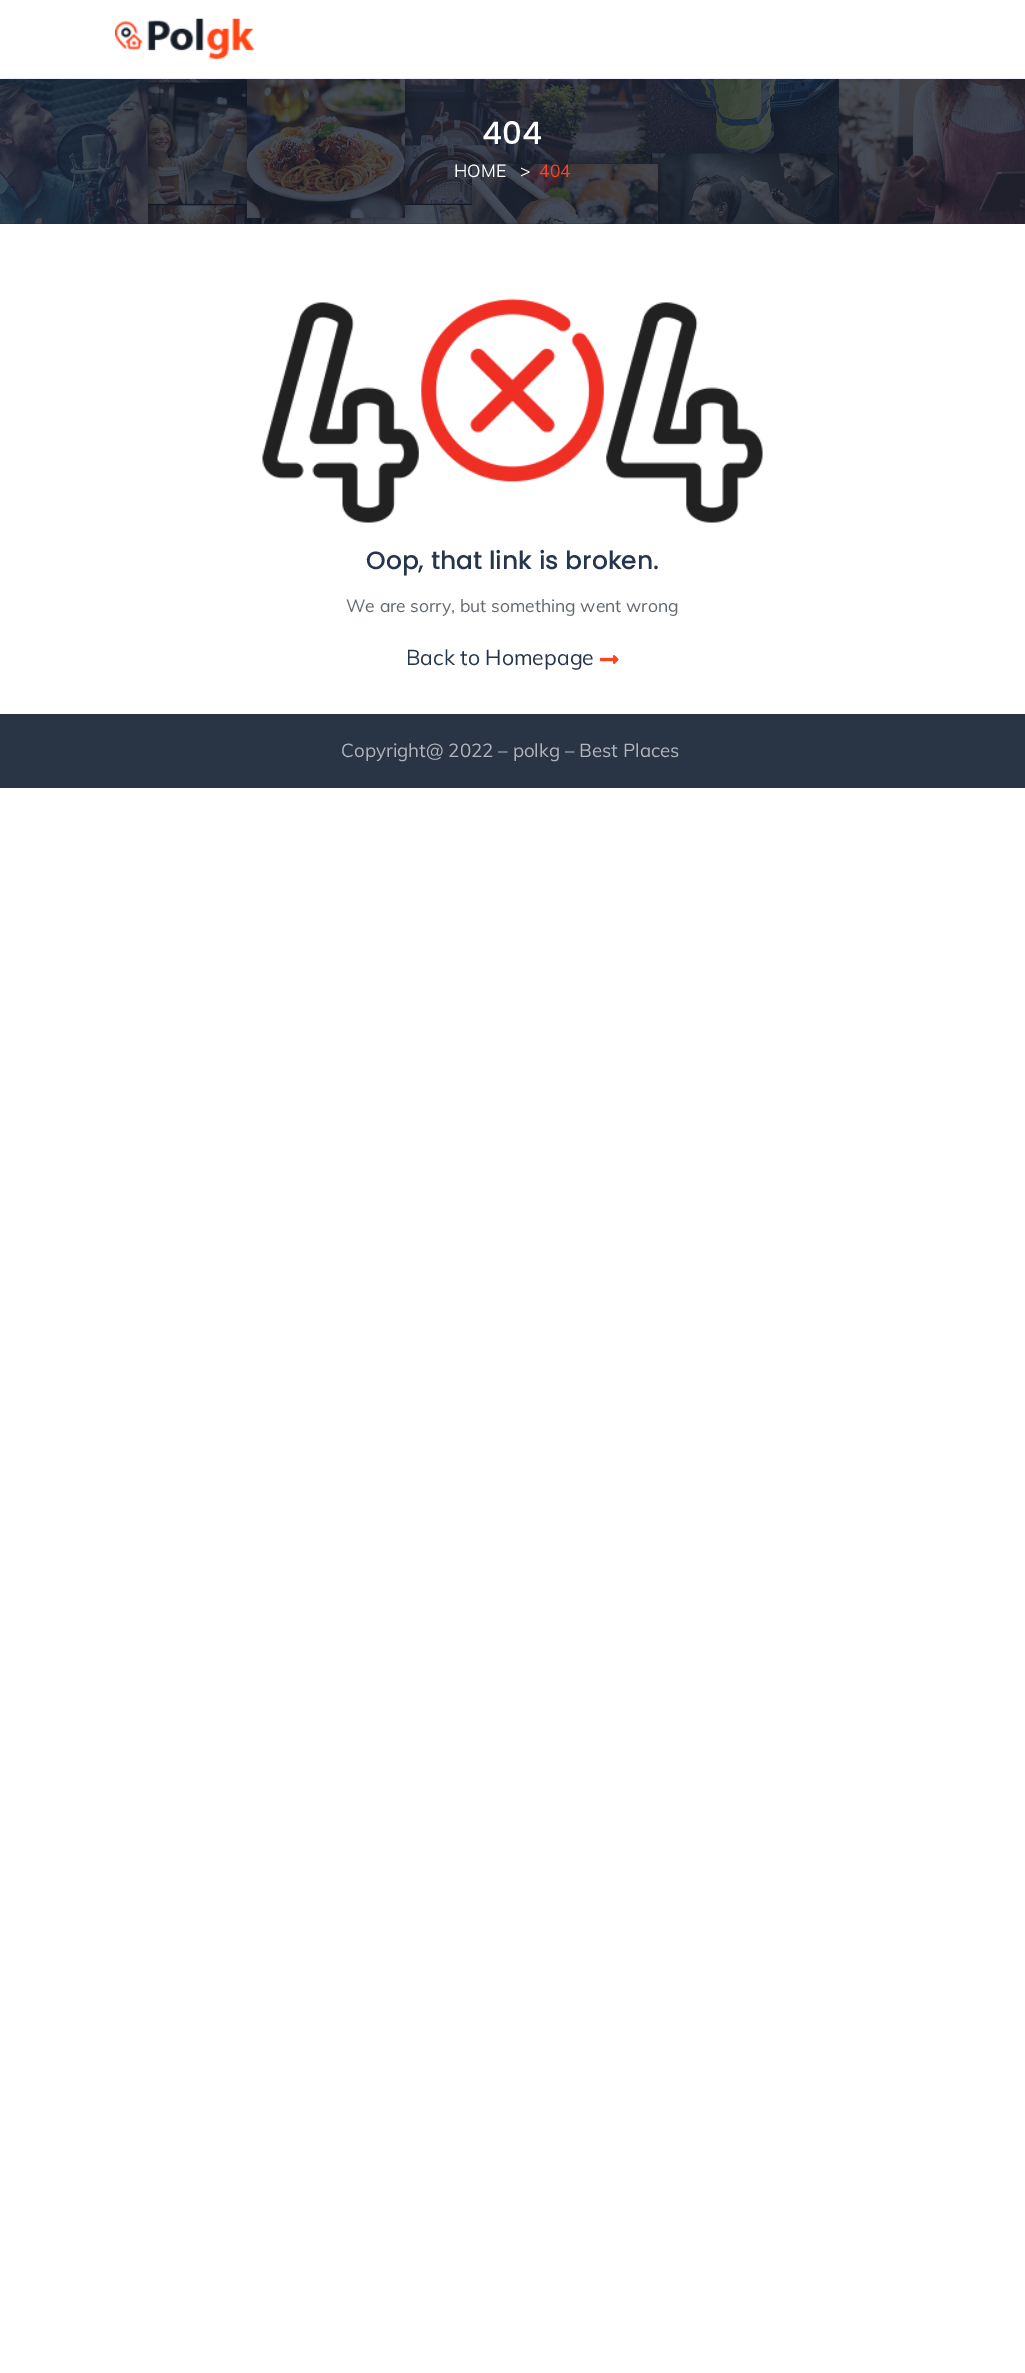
%!PS
<< /PageSize [1025 2373] >> setpagedevice
/rgb { 3 { 255 div 3 1 roll } repeat setrgbcolor } def
/font { [ exch dup neg 0 0 3 -1 roll 0 0 ] selectfont } def
/text { moveto show } def
/picture { 5 dict begin { /h /w /y /x /name } { exch def } forall
  gsave x y translate w h scale
  w h 8 [w 0 0 h 0 0] name (r) file false 3 colorimage grestore end } def
0 2373 translate 1 -1 scale
4 setmiterlimit
255 255 255 rgb
0 0 1025 2373 rectfill
234 239 245 rgb
0 78 1025 1 rectfill
(img_01.rgb) 115 18 140 41 picture
(img_02.rgb) 0 79 1025 145 picture
(img_03.rgb) 262 298 501 225 picture
(img_04.rgb) 600 655 19 10 picture
41 52 68 rgb
0 714 1025 74 rectfill
/Poppins-Medium 31 font
255 255 255 rgb
(404) 482 144 text
/Muli-Regular 17.5 font
(HOME) 454 177 text
(>) 520 177 text
255 67 30 rgb
(404) 539 177 text
/Poppins-Medium 25 font
38 53 78 rgb
(Oop, that link is broken.) 366 569 text
/Muli-Regular 17.5 font
98 106 112 rgb
(We are sorry, but something went wrong) 346 612 text
/Muli-Regular 21.25 font
38 53 78 rgb
(Back to Homepage) 406 665 text
/Muli-Regular 18.75 font
178 182 188 rgb
(Copyright@ 2022 – polkg – Best Places) 341 757 text
showpage
